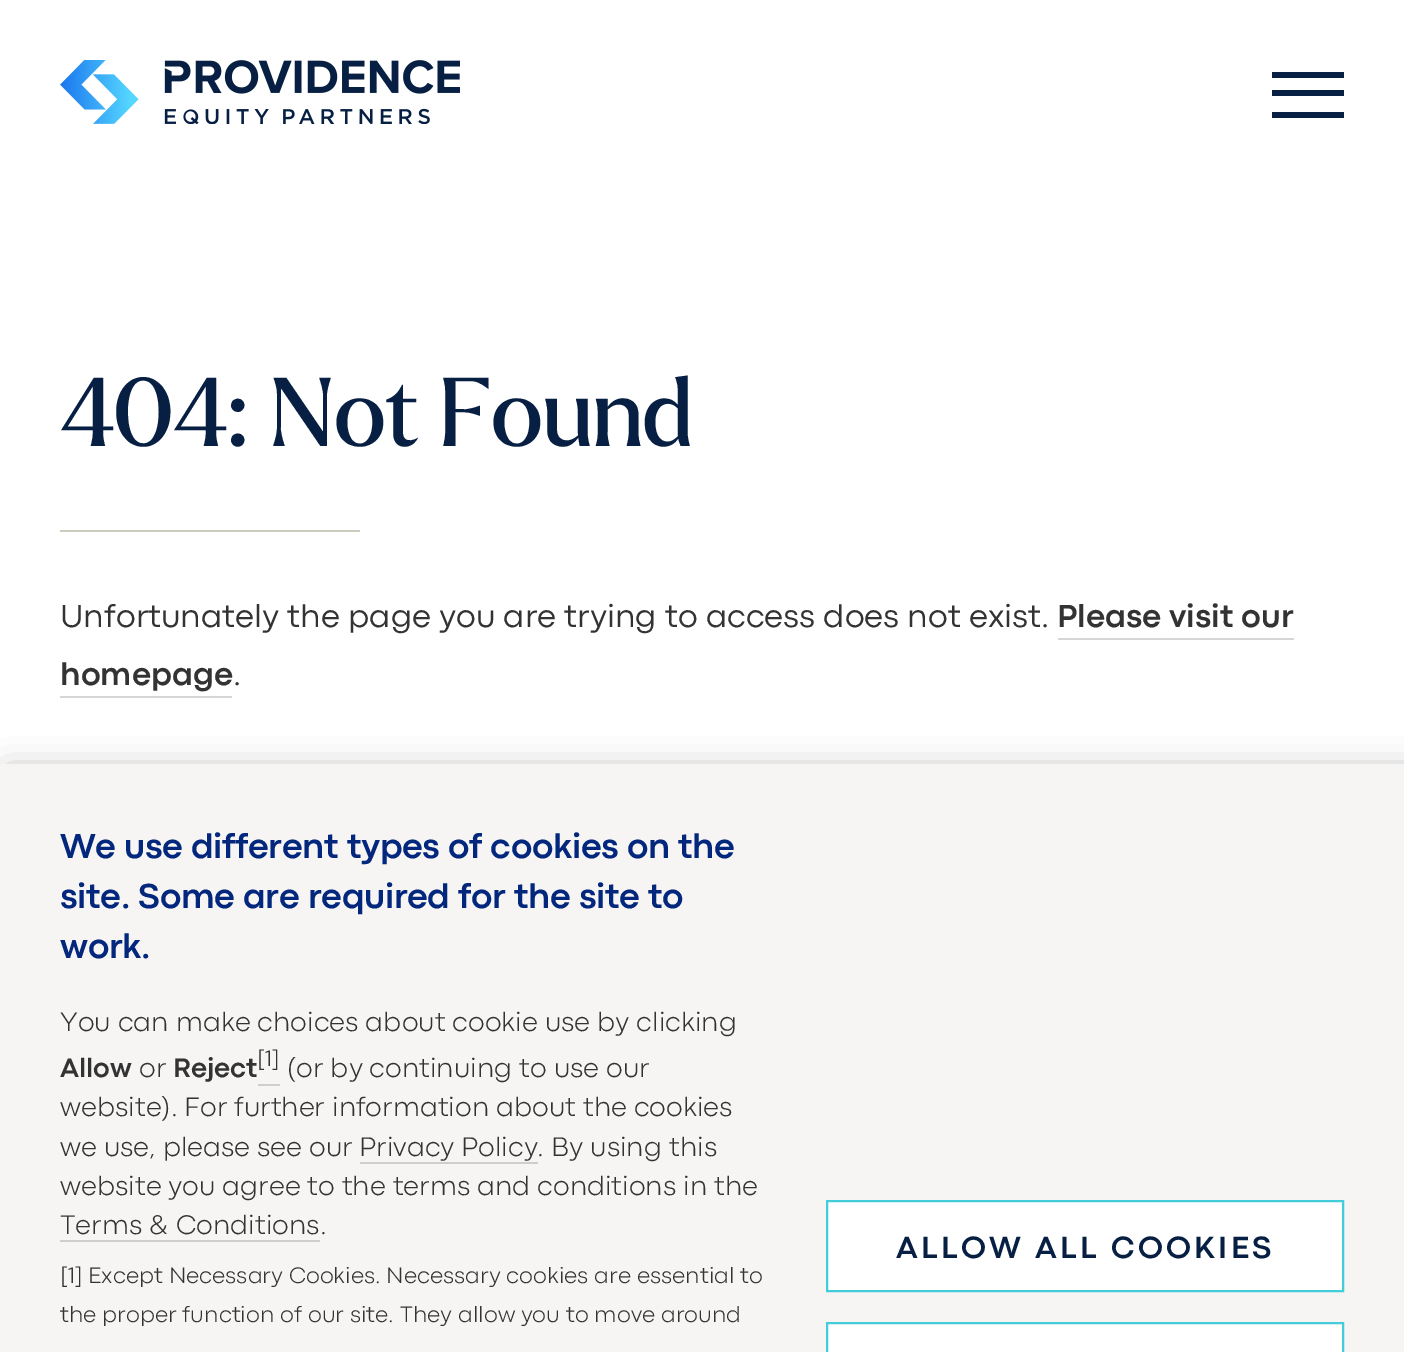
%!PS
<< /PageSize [1404 1352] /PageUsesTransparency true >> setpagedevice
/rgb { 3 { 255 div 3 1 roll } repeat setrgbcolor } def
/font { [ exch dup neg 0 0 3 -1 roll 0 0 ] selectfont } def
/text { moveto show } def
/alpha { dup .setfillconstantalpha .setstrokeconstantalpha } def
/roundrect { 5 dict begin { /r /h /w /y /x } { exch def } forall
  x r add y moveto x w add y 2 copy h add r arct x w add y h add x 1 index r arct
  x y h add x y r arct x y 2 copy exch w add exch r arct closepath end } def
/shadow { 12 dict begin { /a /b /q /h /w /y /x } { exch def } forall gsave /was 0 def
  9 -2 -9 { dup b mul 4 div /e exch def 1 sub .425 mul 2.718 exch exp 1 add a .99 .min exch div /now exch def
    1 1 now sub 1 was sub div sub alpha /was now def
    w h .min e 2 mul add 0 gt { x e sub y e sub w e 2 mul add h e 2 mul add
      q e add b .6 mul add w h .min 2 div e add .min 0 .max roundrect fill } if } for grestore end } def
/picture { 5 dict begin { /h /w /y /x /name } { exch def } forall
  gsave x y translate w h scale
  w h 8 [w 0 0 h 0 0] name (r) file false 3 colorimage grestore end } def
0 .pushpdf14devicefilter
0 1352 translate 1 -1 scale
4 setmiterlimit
255 255 255 rgb
0 0 1404 1352 rectfill
(img_01.rgb) 60 60 400 64 picture
6 31 66 rgb
1272 90 72 6 rectfill
1272 72 72 6 rectfill
1272 112 72 6 rectfill
203 203 190 rgb
60 530 300 2 rectfill
214 214 214 rgb
1058 638 236 2 rectfill
60 696 172 2 rectfill
0 0 0 rgb
8 772 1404 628 0 16 0.33 shadow
246 245 244 rgb
0 764 1404 588 rectfill
207 206 205 rgb
258 1084 22 2 rectfill
360 1162 178 2 rectfill
60 1240 260 2 rectfill
255 255 255 rgb
827 1201 moveto 516 0 rlineto 0 90 rlineto -516 0 rlineto closepath gsave fill grestore
67 204 217 rgb
2 setlinewidth
stroke
255 255 255 rgb
827 1323 moveto 516 0 rlineto 0 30 rlineto -516 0 rlineto closepath gsave fill grestore
67 204 217 rgb
stroke
/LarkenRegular-Regular 95 font
6 31 66 rgb
60 446 moveto -1 0 (404: Not Found) ashow
/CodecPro-Light 33.25 font
51 51 51 rgb
(Unfortunately the page you are trying to access does not exist.) 60 627 text
/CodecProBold-Bold 33.25 font
(Please visit our) 1057 627 text
(homepage) 60 685 text
/CodecPro-Light 33.25 font
(.) 233 685 text
/CodecProBold-Bold 36 font
2 39 124 rgb
60 858 moveto -0.35 0 (We use different types of cookies on the) ashow
60 908 moveto -0.35 0 (site. Some are required for the site to) ashow
60 958 moveto -0.35 0 (work.) ashow
/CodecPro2-Light 28 font
51 51 51 rgb
(You can make choices about cookie use by clicking) 60 1031 text
/CodecProBold-Bold 28 font
(Allow) 60 1077 text
/CodecPro2-Light 28 font
(or) 139 1077 text
/CodecProBold-Bold 28 font
(Reject) 173 1077 text
/CodecPro2-Light 23.3 font
([1]) 257 1066 text
/CodecPro2-Light 28 font
(\(or by continuing to use our) 287 1077 text
(website\). For further information about the cookies) 60 1116 text
(we use, please see our Privacy Policy. By using this) 60 1156 text
(website you agree to the terms and conditions in the) 60 1195 text
(Terms & Conditions.) 60 1234 text
/CodecPro2-Light 23.3 font
([1] Except Necessary Cookies. Necessary cookies are essential to) 60 1283 text
(the proper function of our site. They allow you to move around) 60 1322 text
/CodecProBold-Bold 32 font
6 31 66 rgb
896 1258 moveto 3.25 0 (ALLOW ALL COOKIES) ashow
.poppdf14devicefilter showpage
